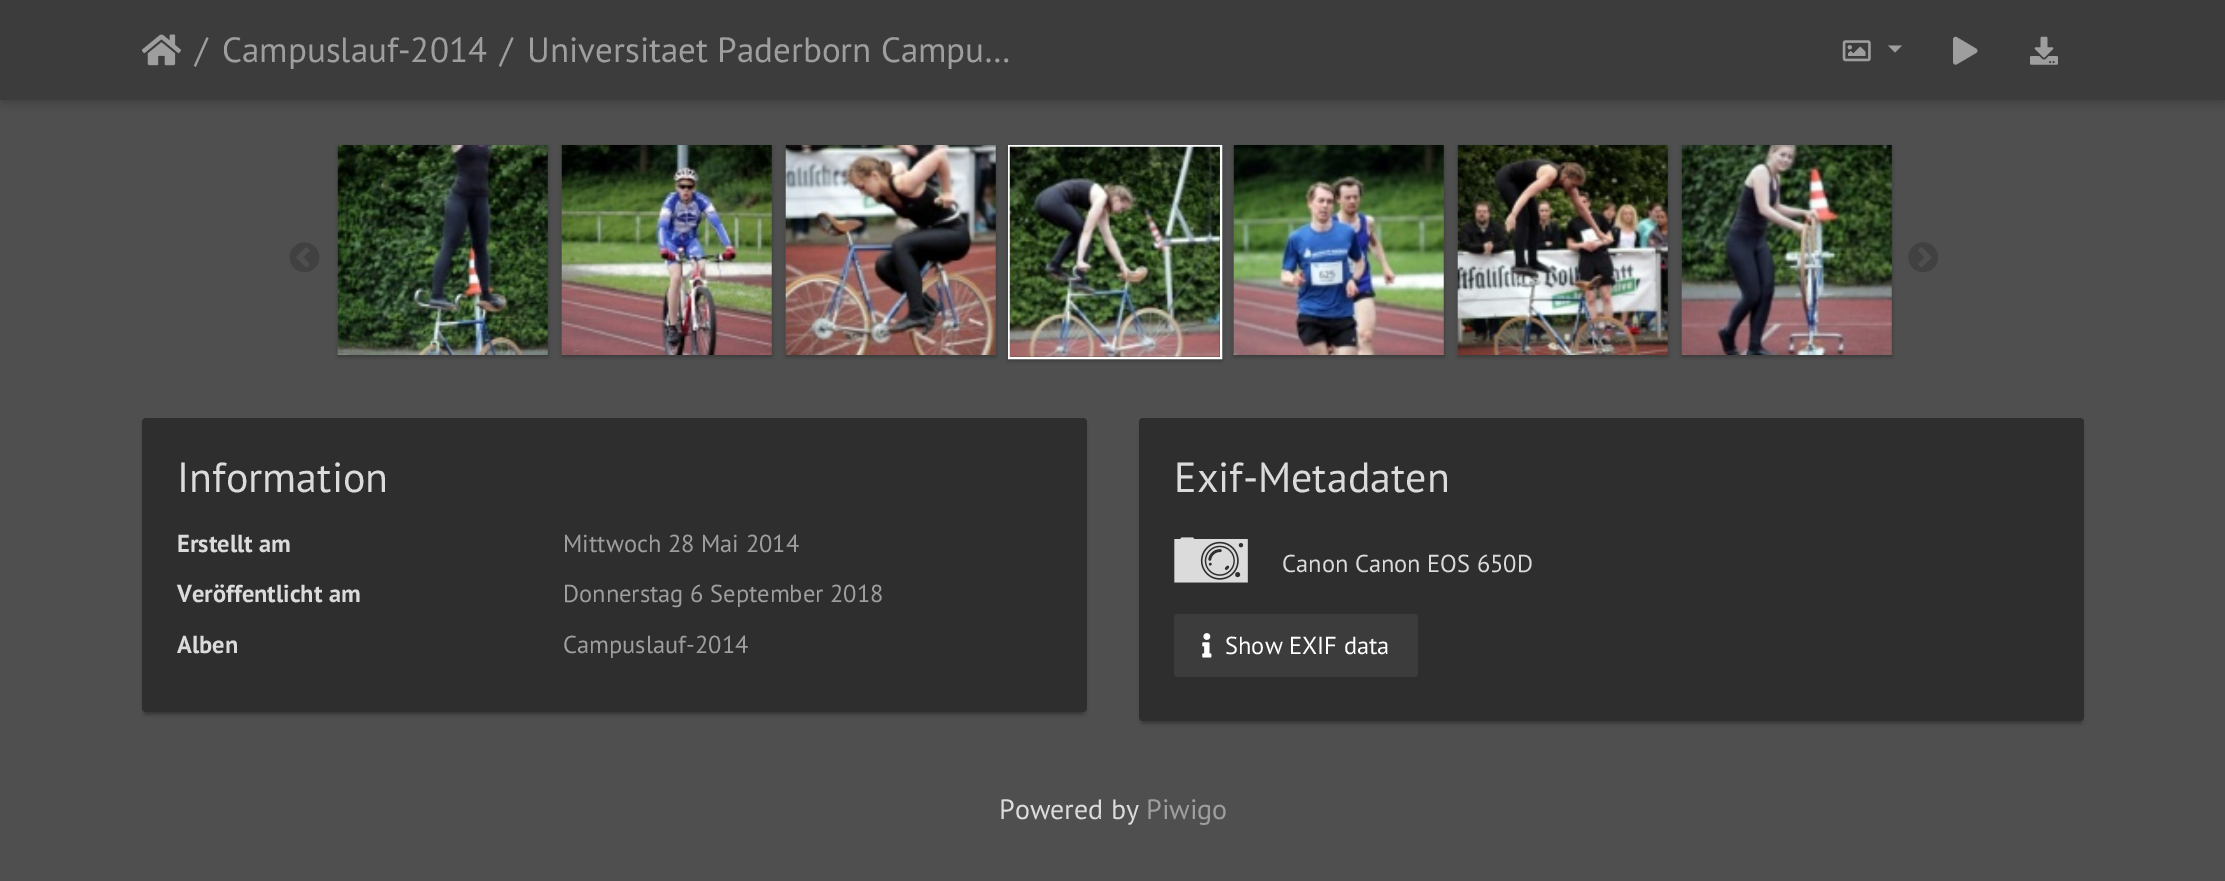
%!PS
<< /PageSize [2225 881] /PageUsesTransparency true >> setpagedevice
/rgb { 3 { 255 div 3 1 roll } repeat setrgbcolor } def
/font { [ exch dup neg 0 0 3 -1 roll 0 0 ] selectfont } def
/text { moveto show } def
/alpha { dup .setfillconstantalpha .setstrokeconstantalpha } def
/roundrect { 5 dict begin { /r /h /w /y /x } { exch def } forall
  x r add y moveto x w add y 2 copy h add r arct x w add y h add x 1 index r arct
  x y h add x y r arct x y 2 copy exch w add exch r arct closepath end } def
/shadow { 12 dict begin { /a /b /q /h /w /y /x } { exch def } forall gsave /was 0 def
  9 -2 -9 { dup b mul 4 div /e exch def 1 sub .425 mul 2.718 exch exp 1 add a .99 .min exch div /now exch def
    1 1 now sub 1 was sub div sub alpha /was now def
    w h .min e 2 mul add 0 gt { x e sub y e sub w e 2 mul add h e 2 mul add
      q e add b .6 mul add w h .min 2 div e add .min 0 .max roundrect fill } if } for grestore end } def
/picture { 5 dict begin { /h /w /y /x /name } { exch def } forall
  gsave x y translate w h scale
  w h 8 [w 0 0 h 0 0] name (r) file false 3 colorimage grestore end } def
0 .pushpdf14devicefilter
0 881 translate 1 -1 scale
4 setmiterlimit
79 79 79 rgb
0 0 2225 881 rectfill
0 0 0 rgb
2 7 2222 96 0 4.5 0.2 shadow
60 60 60 rgb
0 0 2225 100 rectfill
(img_01.rgb) 142 34 39 32 picture
(img_02.rgb) 1842 40 29 22 picture
158 158 158 rgb
1888 45.5 moveto 14 0 rlineto -7 7 rlineto closepath fill
(img_03.rgb) 1953 36 25 29 picture
(img_04.rgb) 2030 36 28 29 picture
(img_05.rgb) 289 242 31 30 picture
gsave
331 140 moveto 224 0 rlineto 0 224 rlineto -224 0 rlineto closepath 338 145 moveto 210 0 rlineto 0 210 rlineto -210 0 rlineto closepath eoclip newpath
0 0 0 rgb
338 147 210 210 0 2 0.24 shadow
grestore
(img_06.rgb) 337 145 211 210 picture
gsave
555 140 moveto 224 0 rlineto 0 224 rlineto -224 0 rlineto closepath 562 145 moveto 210 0 rlineto 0 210 rlineto -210 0 rlineto closepath eoclip newpath
0 0 0 rgb
562 147 210 210 0 2 0.24 shadow
grestore
(img_07.rgb) 561 145 211 210 picture
gsave
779 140 moveto 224 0 rlineto 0 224 rlineto -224 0 rlineto closepath 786 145 moveto 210 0 rlineto 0 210 rlineto -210 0 rlineto closepath eoclip newpath
0 0 0 rgb
786 147 210 210 0 2 0.24 shadow
grestore
(img_08.rgb) 785 145 211 210 picture
gsave
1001 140 moveto 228 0 rlineto 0 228 rlineto -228 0 rlineto closepath 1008 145 moveto 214 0 rlineto 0 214 rlineto -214 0 rlineto closepath eoclip newpath
0 0 0 rgb
1008 147 214 214 0 2 0.24 shadow
grestore
255 255 255 rgb
2 setlinewidth
1009 146 212 212 rectstroke
(img_09.rgb) 1009 146 211 211 picture
gsave
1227 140 moveto 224 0 rlineto 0 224 rlineto -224 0 rlineto closepath 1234 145 moveto 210 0 rlineto 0 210 rlineto -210 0 rlineto closepath eoclip newpath
0 0 0 rgb
1234 147 210 210 0 2 0.24 shadow
grestore
(img_10.rgb) 1233 145 211 210 picture
gsave
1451 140 moveto 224 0 rlineto 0 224 rlineto -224 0 rlineto closepath 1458 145 moveto 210 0 rlineto 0 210 rlineto -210 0 rlineto closepath eoclip newpath
0 0 0 rgb
1458 147 210 210 0 2 0.24 shadow
grestore
(img_11.rgb) 1457 145 211 210 picture
gsave
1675 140 moveto 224 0 rlineto 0 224 rlineto -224 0 rlineto closepath 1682 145 moveto 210 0 rlineto 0 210 rlineto -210 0 rlineto closepath eoclip newpath
0 0 0 rgb
1682 147 210 210 0 2 0.24 shadow
grestore
(img_12.rgb) 1681 145 211 210 picture
(img_13.rgb) 1908 242 30 30 picture
0 0 0 rgb
145 427 938 287 0 1 0.2 shadow
142 422 945 294 4 2 0.14 shadow
46 46 46 rgb
142 418 945 294 4 roundrect fill
0 0 0 rgb
1143 427 938 296 0 1 0.2 shadow
1139 422 945 303 4 2 0.14 shadow
46 46 46 rgb
1139 418 945 303 4 roundrect fill
(img_14.rgb) 1174 537 74 46 picture
60 60 60 rgb
1174 614 244 63 4 roundrect fill
(img_15.rgb) 1202 633 10 25 picture
/PTSans-Regular 35 font
158 158 158 rgb
(/) 195 62 text
(Campuslauf-2014) 222 62 text
(/) 500 62 text
(Universitaet Paderborn Campu…) 527 62 text
/PTSans-Regular 42 font
219 219 219 rgb
(Information) 177 492 text
/PTSans-Bold 24.5 font
(Erstellt am) 177 552 text
/PTSans-Regular 24.5 font
158 158 158 rgb
(Mittwoch 28 Mai 2014) 563 552 text
/PTSans-Bold 24.5 font
219 219 219 rgb
(Veröffentlicht am) 177 602 text
/PTSans-Regular 24.5 font
158 158 158 rgb
(Donnerstag 6 September 2018) 563 602 text
/PTSans-Bold 24.5 font
219 219 219 rgb
(Alben) 177 653 text
/PTSans-Regular 24.5 font
158 158 158 rgb
(Campuslauf-2014) 563 653 text
/PTSans-Regular 42 font
219 219 219 rgb
(Exif-Metadaten) 1174 492 text
/PTSans-Regular 24.5 font
(Canon Canon EOS 650D) 1282 572 text
255 255 255 rgb
(Show EXIF data) 1225 654 text
/PTSans-Regular 28 font
219 219 219 rgb
(Powered by) 999 819 text
158 158 158 rgb
(Piwigo) 1146 819 text
.poppdf14devicefilter showpage
